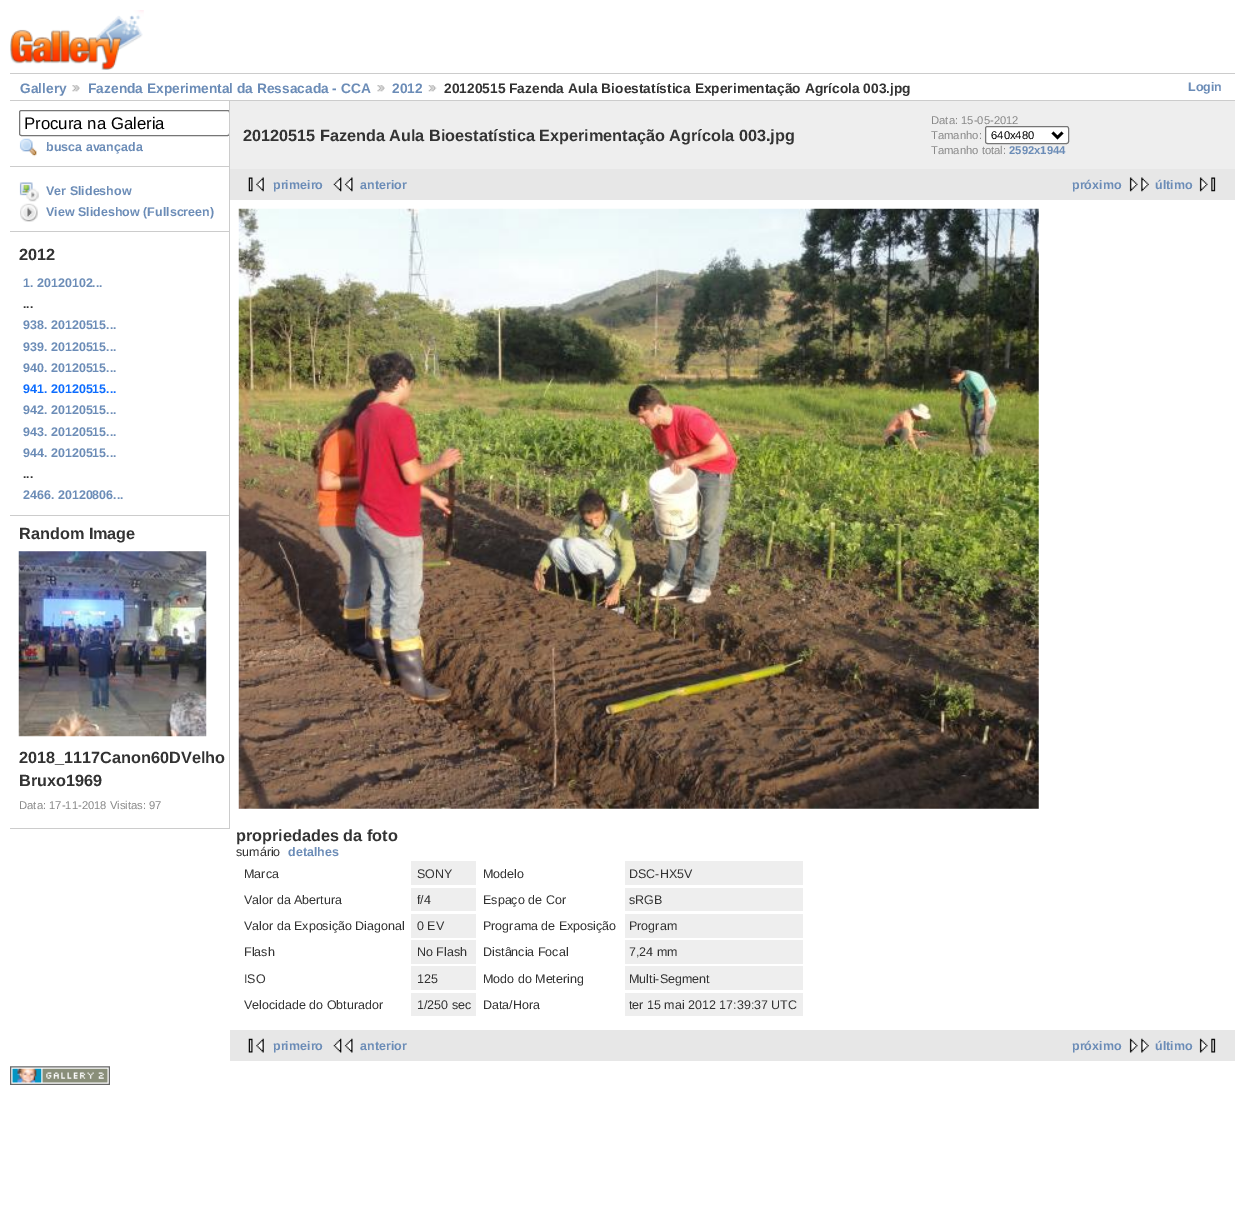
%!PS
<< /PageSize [1245 1216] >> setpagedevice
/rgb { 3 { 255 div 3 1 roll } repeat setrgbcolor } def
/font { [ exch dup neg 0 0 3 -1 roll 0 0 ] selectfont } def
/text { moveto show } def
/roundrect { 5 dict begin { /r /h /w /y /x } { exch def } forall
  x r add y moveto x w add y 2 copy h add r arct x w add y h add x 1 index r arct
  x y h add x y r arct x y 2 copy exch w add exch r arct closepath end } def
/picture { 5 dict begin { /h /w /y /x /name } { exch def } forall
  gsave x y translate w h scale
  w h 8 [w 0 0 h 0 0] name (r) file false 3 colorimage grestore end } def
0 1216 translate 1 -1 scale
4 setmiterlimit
255 255 255 rgb
0 0 1245 1216 rectfill
(img_01.rgb) 10 10 134 60 picture
204 204 204 rgb
10 73 1225 1 rectfill
10 100 1225 1 rectfill
(img_02.rgb) 72 85 8 7 picture
(img_02.rgb) 377 85 8 7 picture
(img_03.rgb) 428 85 9 7 picture
229 101 1 728 rectfill
10 166 219 1 rectfill
gsave
10 101 219 728 rectclip
118 118 118 rgb
19.5 110.5 210 25 2 roundrect stroke
grestore
(img_04.rgb) 19 138 18 19 picture
10 231 219 1 rectfill
(img_05.rgb) 19 182 20 20 picture
(img_06.rgb) 20 203 18 19 picture
10 515 219 1 rectfill
10 828 219 1 rectfill
(img_07.rgb) 18 551 189 186 picture
238 238 238 rgb
230 101 1005 68 rectfill
255 255 255 rgb
985.5 126.5 83 17 2 roundrect gsave fill grestore
118 118 118 rgb
stroke
0 0 0 rgb
2.5 setlinewidth
1052.5 132.5 moveto 5 5 rlineto 5 -5 rlineto stroke
231 231 231 rgb
230 169 1005 31 rectfill
(img_08.rgb) 248 177 16 15 picture
(img_09.rgb) 333 177 20 15 picture
(img_10.rgb) 1129 177 20 15 picture
(img_11.rgb) 1199 177 17 15 picture
(img_12.rgb) 238 208 801 601 picture
238 238 238 rgb
411 861 65 24 rectfill
625 861 178 24 rectfill
411 888 65 23 rectfill
625 888 178 23 rectfill
411 914 65 24 rectfill
625 914 178 24 rectfill
411 940 65 24 rectfill
625 940 178 24 rectfill
411 966 65 24 rectfill
625 966 178 24 rectfill
411 993 65 23 rectfill
625 993 178 23 rectfill
231 231 231 rgb
230 1030 1005 31 rectfill
(img_13.rgb) 248 1038 16 15 picture
(img_14.rgb) 333 1038 20 15 picture
(img_15.rgb) 1129 1038 20 15 picture
(img_16.rgb) 1199 1038 17 15 picture
(img_17.rgb) 10 1066 100 19 picture
/LiberationSans-Bold 13.75 font
107 140 183 rgb
(Gallery) 20 93 text
(Fazenda Experimental da Ressacada - CCA) 88 93 text
(2012) 392 93 text
51 51 51 rgb
(20120515 Fazenda Aula Bioestatística Experimentação Agrícola 003.jpg) 444 93 text
/LiberationSans-Bold 12.5 font
107 140 183 rgb
(Login) 1188 91 text
/LiberationSans-Regular 16.75 font
0 0 0 rgb
(Procura na Galeria) 24 129 text
/LiberationSans-Bold 12.5 font
107 140 183 rgb
(busca avançada) 46 151 text
(Ver Slideshow) 46 195 text
(View Slideshow \(Fullscreen\)) 46 216 text
/LiberationSans-Bold 16.25 font
51 51 51 rgb
(2012) 19 260 text
/LiberationSans-Bold 12.5 font
107 140 183 rgb
(1. 20120102...) 23 287 text
51 51 51 rgb
(...) 23 308 text
107 140 183 rgb
(938. 20120515...) 23 329 text
(939. 20120515...) 23 351 text
(940. 20120515...) 23 372 text
11 108 255 rgb
(941. 20120515...) 23 393 text
107 140 183 rgb
(942. 20120515...) 23 414 text
(943. 20120515...) 23 436 text
(944. 20120515...) 23 457 text
51 51 51 rgb
(...) 23 478 text
107 140 183 rgb
(2466. 20120806...) 23 499 text
/LiberationSans-Bold 16.25 font
51 51 51 rgb
(Random Image) 19 539 text
(2018_1117Canon60DVelho) 19 763 text
(Bruxo1969) 19 786 text
/LiberationSans-Regular 11.25 font
136 136 136 rgb
(Data: 17-11-2018 Visitas: 97) 19 809 text
/LiberationSans-Bold 16.25 font
51 51 51 rgb
(20120515 Fazenda Aula Bioestatística Experimentação Agrícola 003.jpg) 243 141 text
/LiberationSans-Regular 11.25 font
136 136 136 rgb
(Data: 15-05-2012) 931 124 text
(Tamanho:) 931 139 text
0 0 0 rgb
(640x480) 991 139 text
136 136 136 rgb
(Tamanho total:) 931 154 text
/LiberationSans-Bold 11.25 font
107 140 183 rgb
(2592x1944) 1009 154 text
/LiberationSans-Bold 12.5 font
(primeiro) 273 189 text
(anterior) 360 189 text
(próximo) 1072 189 text
(último) 1155 189 text
/LiberationSans-Bold 16.25 font
51 51 51 rgb
(propriedades da foto) 236 841 text
/LiberationSans-Regular 12.5 font
(sumário) 236 856 text
/LiberationSans-Bold 12.5 font
107 140 183 rgb
(detalhes) 288 856 text
/LiberationSans-Regular 12.5 font
51 51 51 rgb
(Marca) 244 878 text
(SONY) 417 878 text
(Modelo) 483 878 text
(DSC-HX5V) 629 878 text
(Valor da Abertura) 244 904 text
(f/4) 417 904 text
(Espaço de Cor) 483 904 text
(sRGB) 629 904 text
(Valor da Exposição Diagonal) 244 930 text
(0 EV) 417 930 text
(Programa de Exposição) 483 930 text
(Program) 629 930 text
(Flash) 244 956 text
(No Flash) 417 956 text
(Distância Focal) 483 956 text
(7,24 mm) 629 956 text
(ISO) 244 983 text
(125) 417 983 text
(Modo do Metering) 483 983 text
(Multi-Segment) 629 983 text
(Velocidade do Obturador) 244 1009 text
(1/250 sec) 417 1009 text
(Data/Hora) 483 1009 text
(ter 15 mai 2012 17:39:37 UTC) 629 1009 text
/LiberationSans-Bold 12.5 font
107 140 183 rgb
(primeiro) 273 1050 text
(anterior) 360 1050 text
(próximo) 1072 1050 text
(último) 1155 1050 text
showpage
